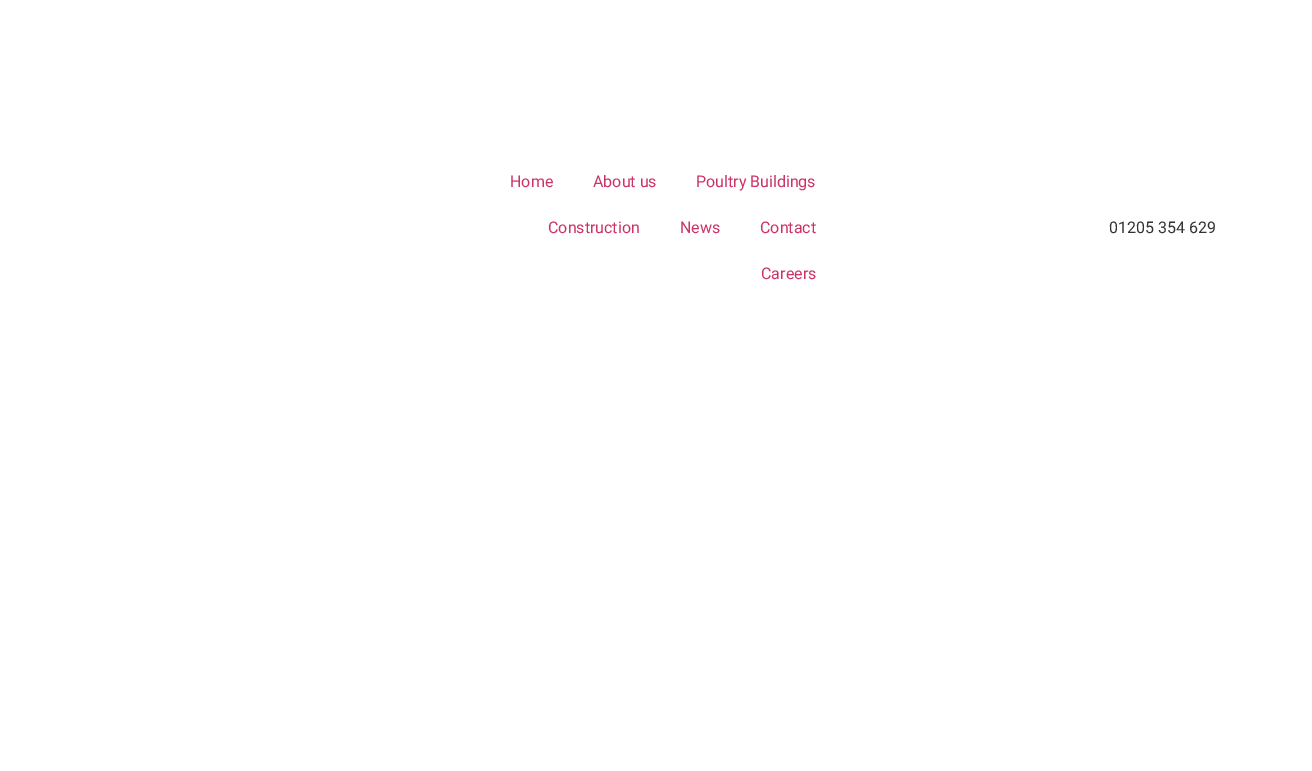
%!PS
<< /PageSize [1312 771] >> setpagedevice
/rgb { 3 { 255 div 3 1 roll } repeat setrgbcolor } def
/font { [ exch dup neg 0 0 3 -1 roll 0 0 ] selectfont } def
/text { moveto show } def
0 771 translate 1 -1 scale
4 setmiterlimit
255 255 255 rgb
0 0 1312 771 rectfill
/Roboto-Regular 16 font
204 51 102 rgb
(Home) 510 187 text
(About us) 593 187 text
(Poultry Buildings) 696 187 text
(Construction) 548 233 text
(News) 680 233 text
(Contact) 760 233 text
(Careers) 761 279 text
51 51 51 rgb
(01205 354 629) 1109 233 text
showpage
